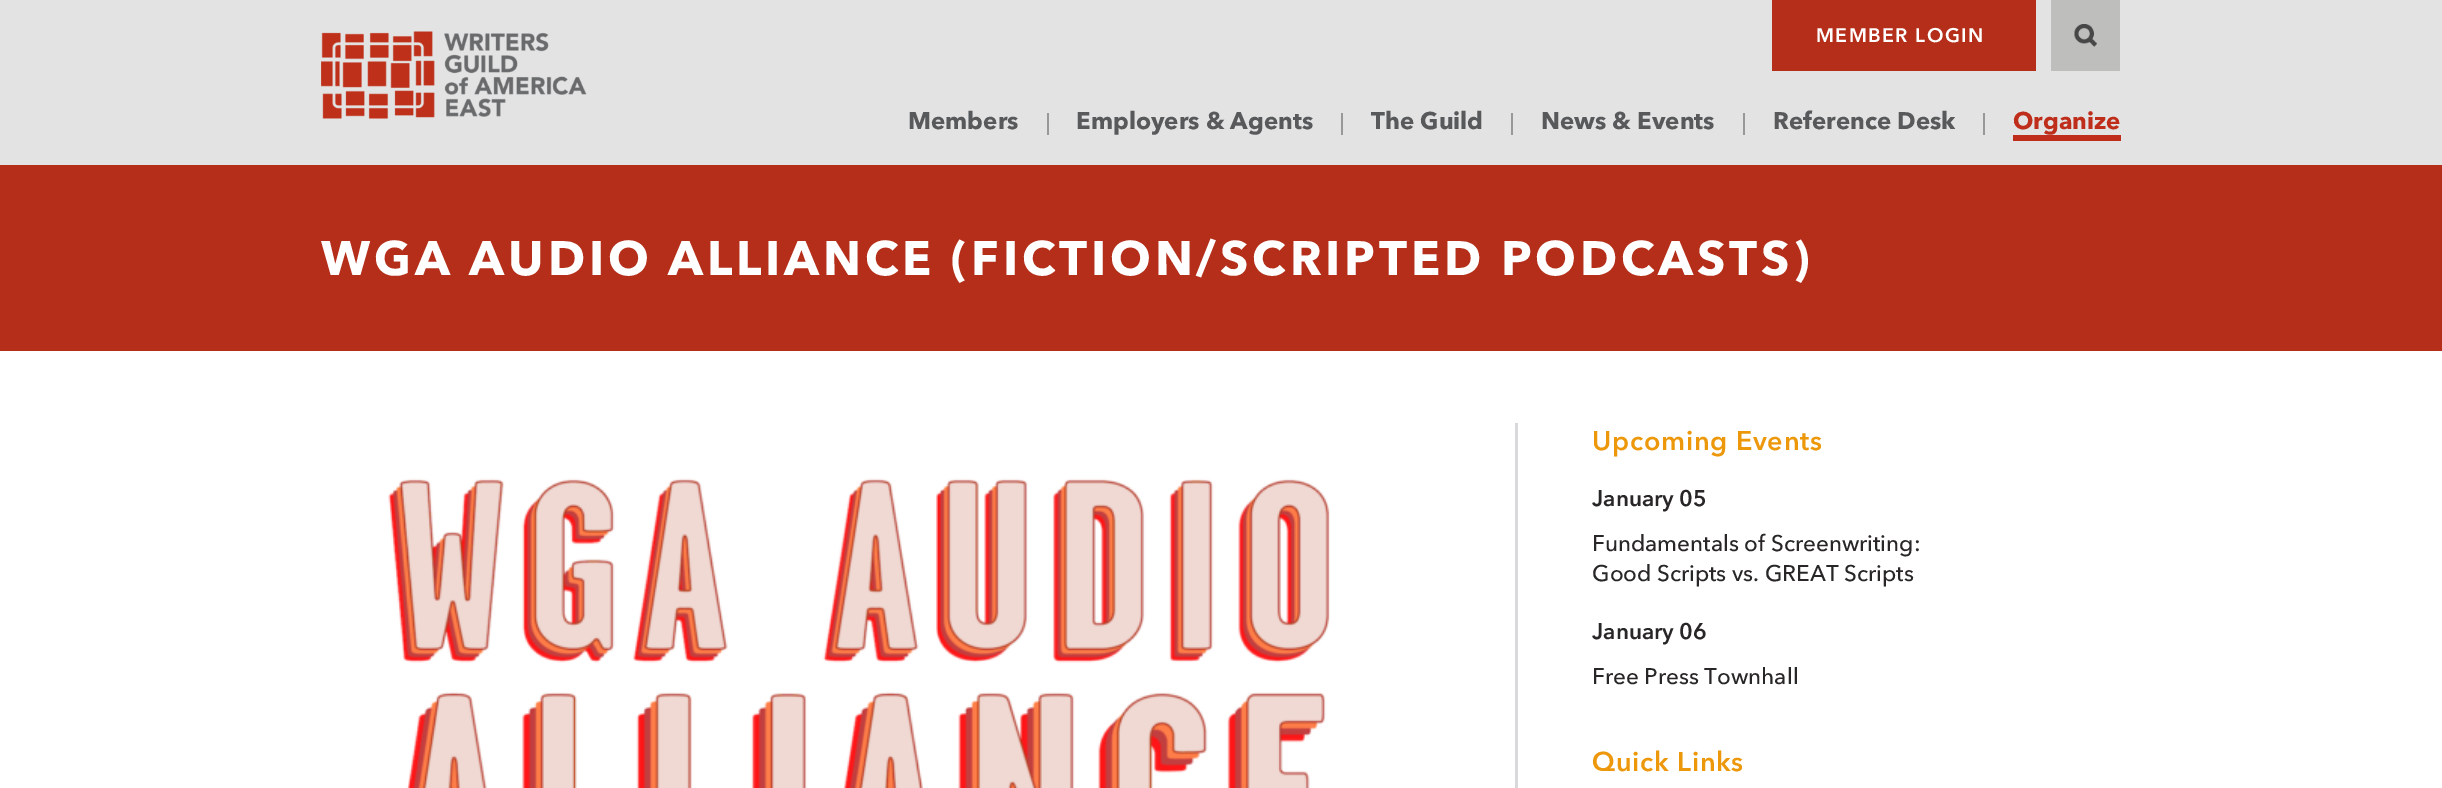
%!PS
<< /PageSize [2442 788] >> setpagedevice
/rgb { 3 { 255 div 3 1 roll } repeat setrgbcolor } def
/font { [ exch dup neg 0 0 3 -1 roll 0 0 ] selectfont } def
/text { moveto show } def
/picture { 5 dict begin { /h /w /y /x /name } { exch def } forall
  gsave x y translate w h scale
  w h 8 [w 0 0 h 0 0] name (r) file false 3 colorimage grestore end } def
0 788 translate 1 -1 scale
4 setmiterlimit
255 255 255 rgb
0 0 2442 788 rectfill
227 227 227 rgb
0 0 2442 165 rectfill
(img_01.rgb) 321 31 266 88 picture
180 46 26 rgb
1772 0 264 71 rectfill
190 190 188 rgb
2051 0 69 71 rectfill
(img_02.rgb) 2074 24 23 23 picture
152 152 152 rgb
1047 113 2 22 rectfill
1341 113 2 22 rectfill
1511 113 2 22 rectfill
1743 113 2 22 rectfill
1983 113 2 22 rectfill
190 46 26 rgb
2013 135 108 6 rectfill
181 46 26 rgb
0 165 2442 186 rectfill
(img_03.rgb) 388 478 942 310 picture
217 217 219 rgb
1515 423 3 365 rectfill
/AvenirNext-SemiBold 19.5 font
255 255 255 rgb
1816 42 moveto 1.4 0 (MEMBER LOGIN) ashow
/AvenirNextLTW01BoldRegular-Bold 24 font
88 89 91 rgb
(Members) 908 129 text
(Employers & Agents) 1076 129 text
(The Guild) 1371 129 text
(News & Events) 1541 129 text
(Reference Desk) 1773 129 text
190 46 26 rgb
(Organize) 2013 129 text
/AvenirNextLTW01BoldRegular-Bold 48 font
255 255 255 rgb
321 275 moveto 3.85 0 (WGA AUDIO ALLIANCE \(FICTION/SCRIPTED PODCASTS\)) ashow
/AvenirNext-SemiBold 27 font
237 152 10 rgb
1592 450 moveto 0.75 0 (Upcoming Events) ashow
/AvenirNext-SemiBold 22.5 font
40 38 39 rgb
(January 05) 1592 506 text
/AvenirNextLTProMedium-Medium 22.5 font
(Fundamentals of Screenwriting:) 1592 551 text
(Good Scripts vs. GREAT Scripts) 1592 581 text
/AvenirNext-SemiBold 22.5 font
(January 06) 1592 639 text
/AvenirNextLTProMedium-Medium 22.5 font
(Free Press Townhall) 1592 684 text
/AvenirNext-SemiBold 27 font
237 152 10 rgb
1592 771 moveto 0.75 0 (Quick Links) ashow
showpage
